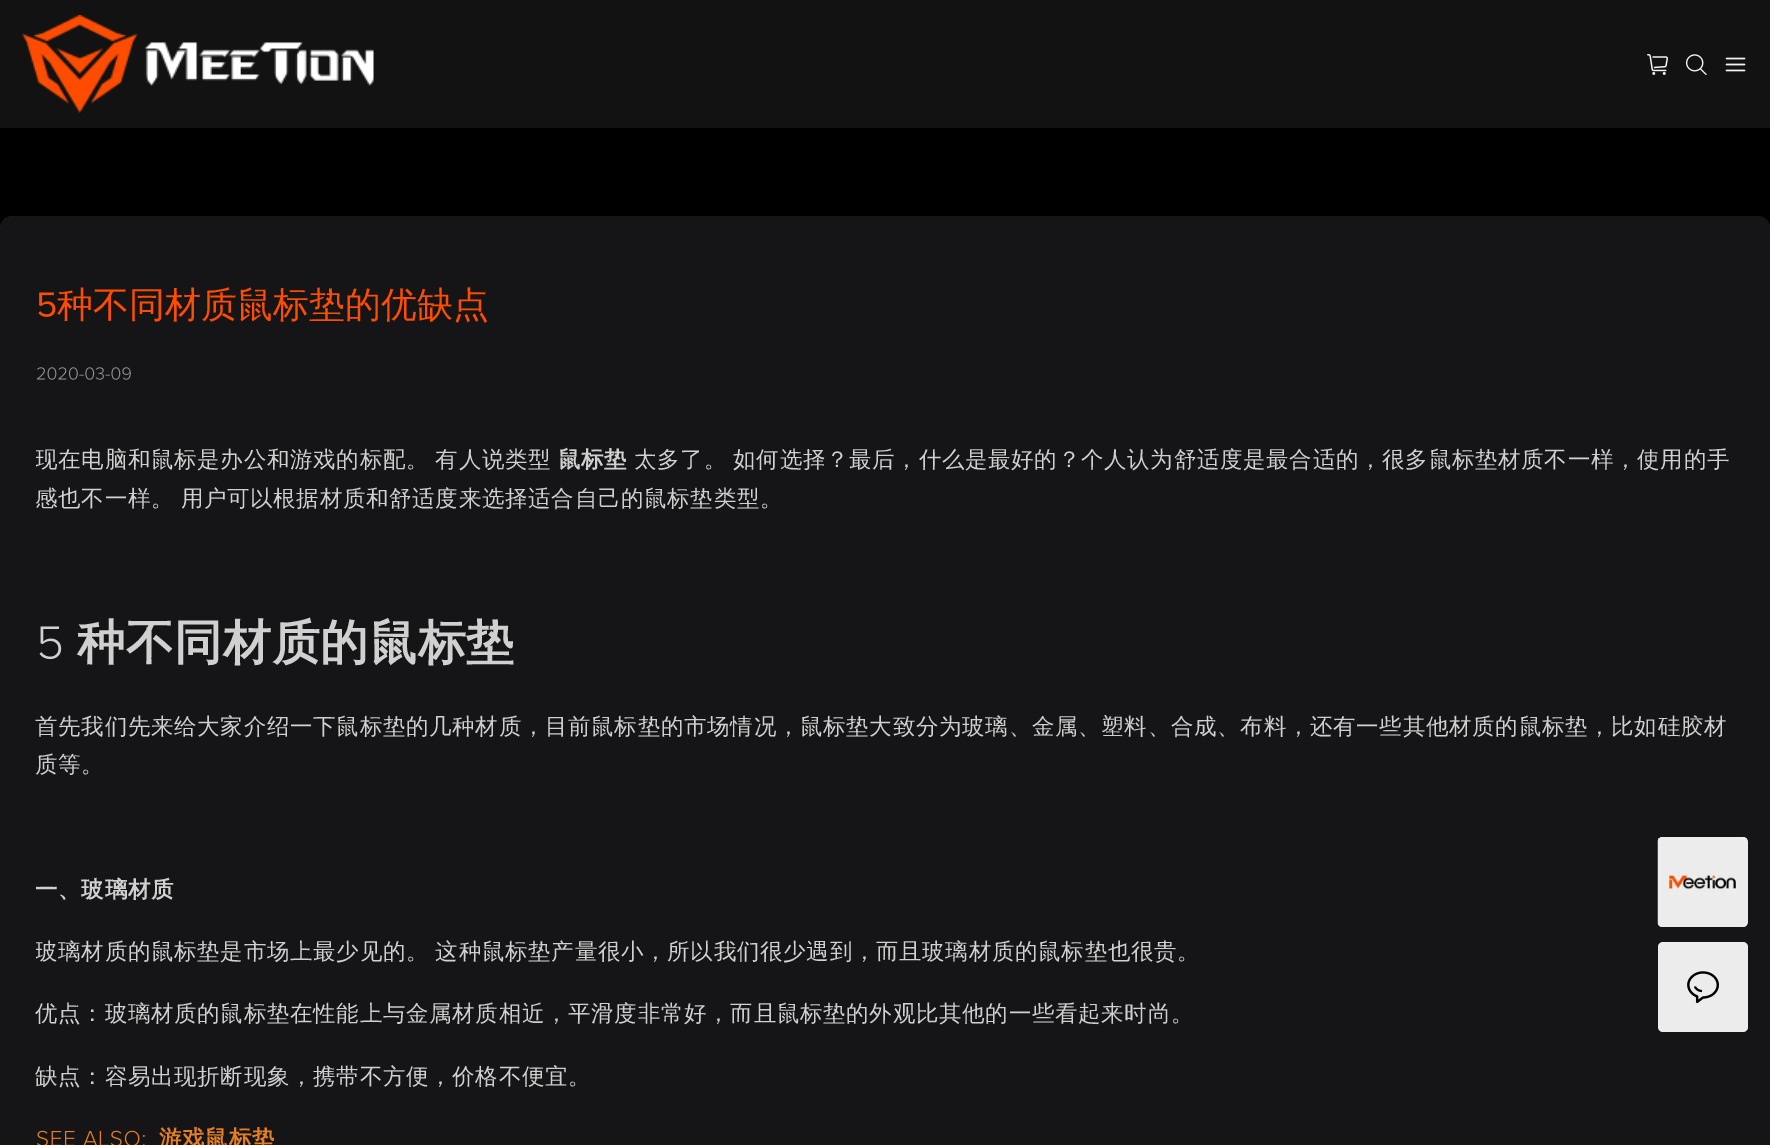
%!PS
<< /PageSize [1770 1145] >> setpagedevice
/rgb { 3 { 255 div 3 1 roll } repeat setrgbcolor } def
/font { [ exch dup neg 0 0 3 -1 roll 0 0 ] selectfont } def
/text { moveto show } def
/roundrect { 5 dict begin { /r /h /w /y /x } { exch def } forall
  x r add y moveto x w add y 2 copy h add r arct x w add y h add x 1 index r arct
  x y h add x y r arct x y 2 copy exch w add exch r arct closepath end } def
/picture { 5 dict begin { /h /w /y /x /name } { exch def } forall
  gsave x y translate w h scale
  w h 8 [w 0 0 h 0 0] name (r) file false 3 colorimage grestore end } def
0 1145 translate 1 -1 scale
4 setmiterlimit
0 0 0 rgb
0 0 1770 1145 rectfill
18 18 18 rgb
0 0 1770 128 rectfill
(img_01.rgb) 22 15 352 98 picture
(img_02.rgb) 1647 54 21 21 picture
(img_03.rgb) 1686 54 21 21 picture
(img_04.rgb) 1725 57 21 15 picture
21 21 23 rgb
0 216 1770 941 12 roundrect fill
(img_05.rgb) 38 292 18 25 picture
(img_06.rgb) 37 367 94 13 picture
(img_07.rgb) 39 626 23 34 picture
(img_08.rgb) 37 1130 108 15 picture
236 236 236 rgb
1658 942 90 90 5 roundrect fill
(img_09.rgb) 1687 971 32 33 picture
1658 837 90 90 5 roundrect fill
(img_10.rgb) 1657 837 91 90 picture
/WenQuanYiZenHei-Medium 36 font
255 77 0 rgb
(种不同材质鼠标垫的优缺点) 57 317 text
gsave
36 419 1698 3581 rectclip
/WenQuanYiZenHei-Medium 22.5 font
208 208 209 rgb
35 467 moveto -1 0 32 0.68 0 (现在电脑和鼠标是办公和游戏的标配。 有人说类型) awidthshow
grestore
/WenQuanYiZenHei-Bold 22.5 font
208 208 209 rgb
558 467 moveto 0.68 0 (鼠标垫) ashow
/WenQuanYiZenHei-Medium 22.5 font
634 467 moveto -1 0 32 0.68 0 (太多了。 如何选择？最后，什么是最好的？个人认为舒适度是最合适的，很多鼠标垫材质不一样，使用的手) awidthshow
35 506 moveto -1 0 32 0.68 0 (感也不一样。 用户可以根据材质和舒适度来选择适合自己的鼠标垫类型。) awidthshow
/WenQuanYiZenHei-Bold 48 font
77 659 moveto 0.68 0 (种不同材质的鼠标垫) ashow
/WenQuanYiZenHei-Medium 22.5 font
35 734 moveto 0.68 0 (首先我们先来给大家介绍一下鼠标垫的几种材质，目前鼠标垫的市场情况，鼠标垫大致分为玻璃、金属、塑料、合成、布料，还有一些其他材质的鼠标垫，比如硅胶材) ashow
35 772 moveto 0.68 0 (质等。) ashow
/WenQuanYiZenHei-Bold 22.5 font
35 897 moveto 0.68 0 (一、玻璃材质) ashow
gsave
36 419 1698 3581 rectclip
/WenQuanYiZenHei-Medium 22.5 font
35 959 moveto -1 0 32 0.68 0 (玻璃材质的鼠标垫是市场上最少见的。 这种鼠标垫产量很小，所以我们很少遇到，而且玻璃材质的鼠标垫也很贵。) awidthshow
grestore
/WenQuanYiZenHei-Medium 22.5 font
35 1021 moveto 0.68 0 (优点：玻璃材质的鼠标垫在性能上与金属材质相近，平滑度非常好，而且鼠标垫的外观比其他的一些看起来时尚。) ashow
35 1084 moveto 0.68 0 (缺点：容易出现折断现象，携带不方便，价格不便宜。) ashow
/WenQuanYiZenHei-Bold 22.5 font
230 126 35 rgb
159 1146 moveto 0.68 0 (游戏鼠标垫) ashow
showpage
